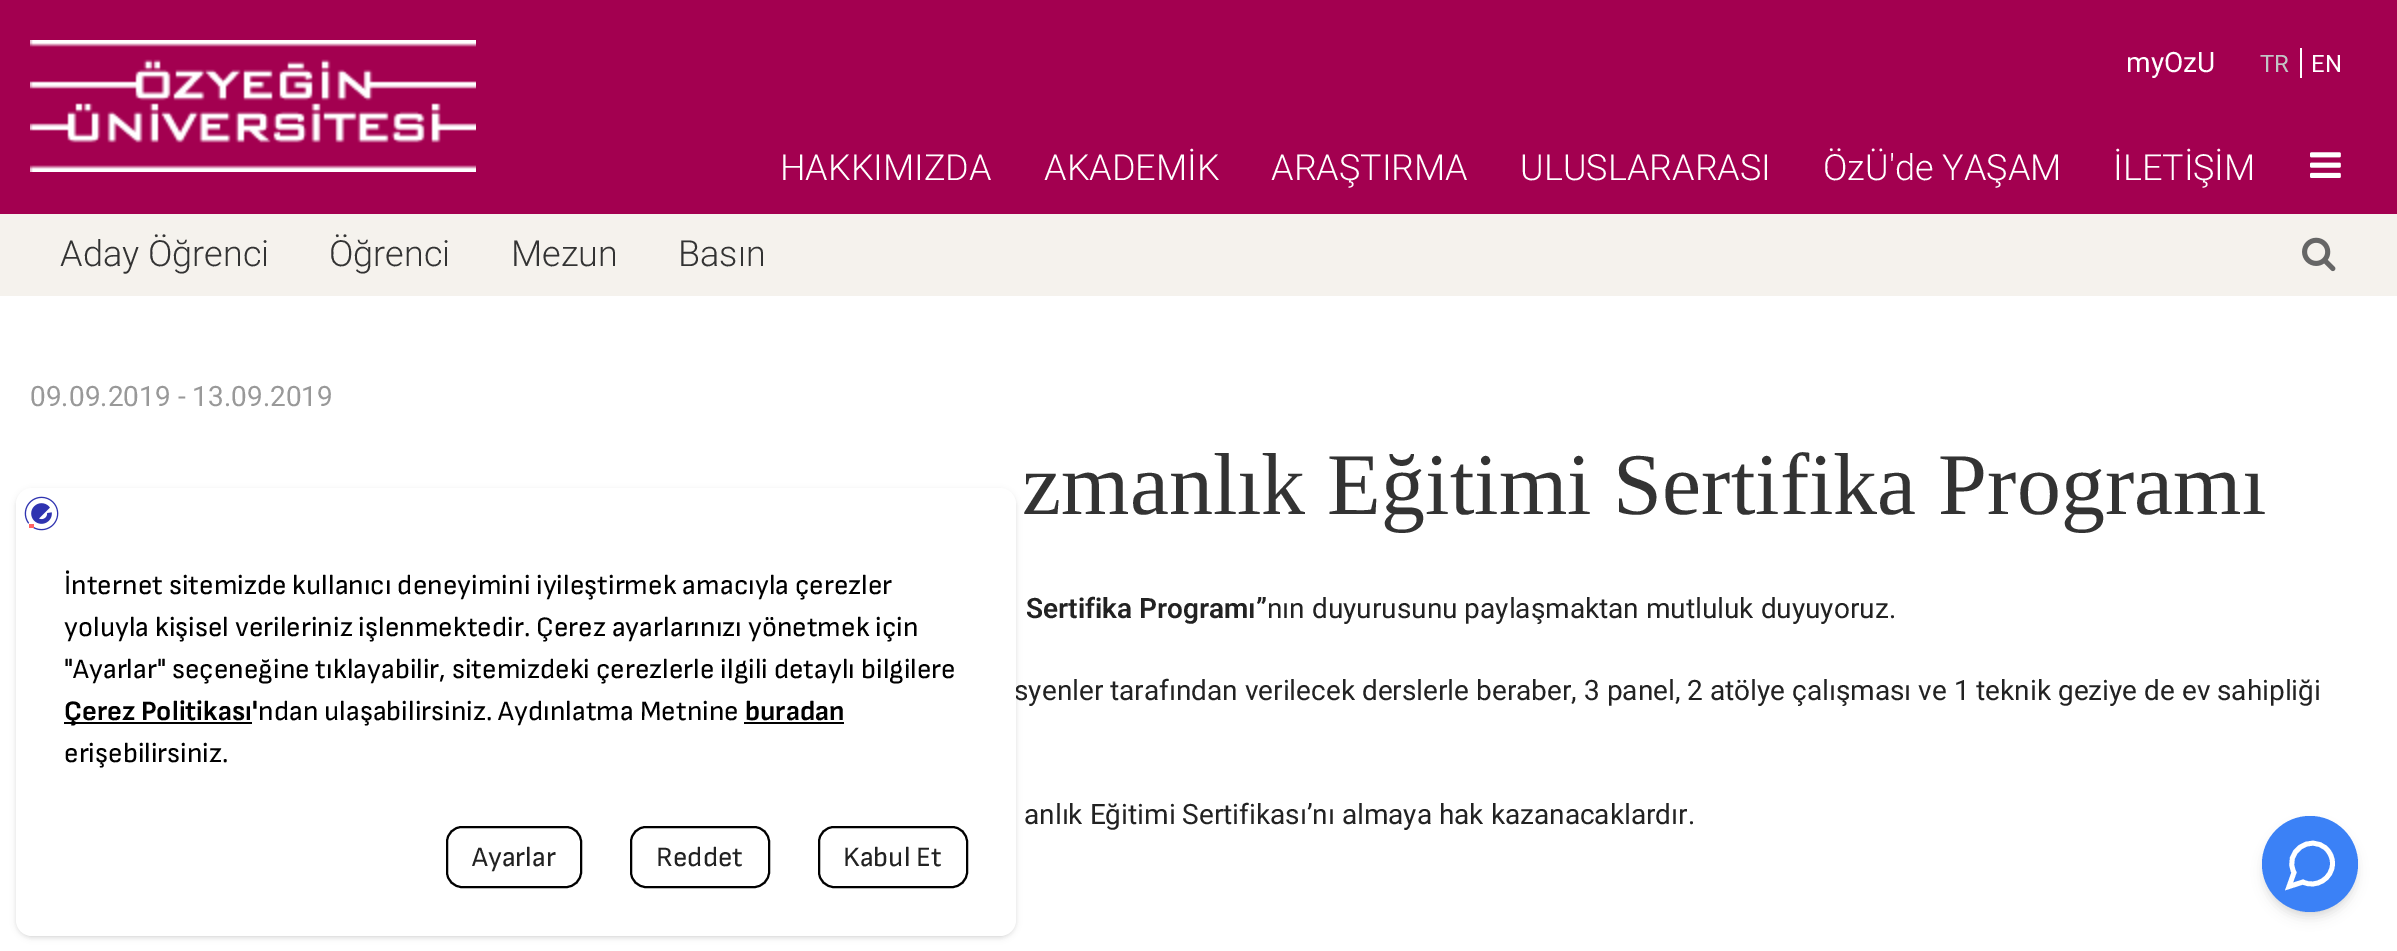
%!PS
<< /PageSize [2397 951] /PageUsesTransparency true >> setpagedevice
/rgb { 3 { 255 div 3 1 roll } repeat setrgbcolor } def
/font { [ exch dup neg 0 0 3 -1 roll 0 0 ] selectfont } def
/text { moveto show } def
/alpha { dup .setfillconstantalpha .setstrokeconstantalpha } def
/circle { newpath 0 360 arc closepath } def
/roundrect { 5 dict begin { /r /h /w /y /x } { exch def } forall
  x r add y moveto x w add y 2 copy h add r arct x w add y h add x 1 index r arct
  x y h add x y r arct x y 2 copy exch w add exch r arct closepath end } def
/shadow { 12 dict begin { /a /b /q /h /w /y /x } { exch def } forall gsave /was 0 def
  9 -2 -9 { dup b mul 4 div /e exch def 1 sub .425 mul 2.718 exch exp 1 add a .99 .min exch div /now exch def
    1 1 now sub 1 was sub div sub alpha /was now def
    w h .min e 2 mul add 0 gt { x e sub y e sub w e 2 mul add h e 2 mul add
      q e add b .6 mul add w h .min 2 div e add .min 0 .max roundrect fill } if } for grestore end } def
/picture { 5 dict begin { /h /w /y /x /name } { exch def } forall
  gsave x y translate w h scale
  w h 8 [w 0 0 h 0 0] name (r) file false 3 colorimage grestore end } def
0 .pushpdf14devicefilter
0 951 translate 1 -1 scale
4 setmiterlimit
255 255 255 rgb
0 0 2397 951 rectfill
163 0 80 rgb
0 0 2397 214 rectfill
(img_01.rgb) 30 40 446 132 picture
255 255 255 rgb
2300 48 2 30 rectfill
(img_02.rgb) 2310 152 31 26 picture
245 242 237 rgb
0 214 2397 82 rectfill
(img_03.rgb) 2302 237 34 35 picture
0 0 0 rgb
18 492 996 444 14 2 0.1 shadow
16 490 1000 448 16 3 0.1 shadow
2266 824 88 88 44 4 0.1 shadow
2264 826 92 92 46 6 0.1 shadow
59 129 246 rgb
2310 864 48 circle fill
255 255 255 rgb
4.8 setlinewidth
2332.5 863.5 moveto 0 15 -16.5 25 -29.5 18.5 rcurveto -14 4.5 rlineto 5 -14 rlineto -10.5 -20 16 -39.5 32.5 -23.5 rcurveto 4 4 6 9 6 14.5 rcurveto closepath stroke
/Roboto-Regular 28 font
(myOzU) 2126 72 text
/Roboto-Regular 24 font
194 196 197 rgb
(TR) 2260 72 text
255 255 255 rgb
(EN) 2311 72 text
/Roboto-Light 36 font
(HAKKIMIZDA) 780 180 text
(AKADEMİK) 1044 180 text
(ARAŞTIRMA) 1271 180 text
(ULUSLARARASI) 1520 180 text
(ÖzÜ'de YAŞAM) 1823 180 text
(İLETİŞİM) 2113 180 text
51 51 51 rgb
(Aday Öğrenci) 60 266 text
(Öğrenci) 329 266 text
(Mezun) 511 266 text
(Basın) 678 266 text
/Roboto-Regular 28 font
153 153 153 rgb
(09.09.2019 - 13.09.2019) 30 406 text
/LiberationSerif-Regular 88 font
51 51 51 rgb
(zmanlık Eğitimi Sertifika Programı) 1022 514 text
/Roboto-SemiBold 28 font
34 34 34 rgb
(Sertifika Programı”) 1026 618 text
/Roboto-Regular 28 font
(nın duyurusunu paylaşmaktan mutluluk duyuyoruz.) 1267 618 text
(syenler tarafından verilecek derslerle beraber, 3 panel, 2 atölye çalışması ve 1 teknik geziye de ev sahipliği) 1014 700 text
(anlık Eğitimi Sertifikası’nı almaya hak kazanacaklardır.) 1024 824 text
255 255 255 rgb
16 488 1000 448 16 roundrect fill
(img_04.rgb) 24 496 35 35 picture
/SofiaSans-Regular 28 font
0 0 0 rgb
(İnternet sitemizde kullanıcı deneyimini iyileştirmek amacıyla çerezler) 64 594 text
(yoluyla kişisel verileriniz işlenmektedir. Çerez ayarlarınızı yönetmek için) 64 636 text
("Ayarlar" seçeneğine tıklayabilir, sitemizdeki çerezlerle ilgili detaylı bilgilere) 64 678 text
64 722 188 2 rectfill
/SofiaSans-Bold 28 font
(Çerez Politikası') 64 720 text
/SofiaSans-Regular 28 font
(ndan ulaşabilirsiniz. Aydınlatma Metnine) 258 720 text
/SofiaSans-Bold 28 font
(buradan) 745 720 text
744 722 100 2 rectfill
/SofiaSans-Regular 28 font
(erişebilirsiniz.) 64 762 text
2 setlinewidth
447 827 134 60 15 roundrect stroke
34 34 34 rgb
(Ayarlar) 472 866 text
0 0 0 rgb
631 827 138 60 15 roundrect stroke
34 34 34 rgb
(Reddet) 656 866 text
0 0 0 rgb
819 827 148 60 15 roundrect stroke
34 34 34 rgb
(Kabul Et) 843 866 text
.poppdf14devicefilter showpage
